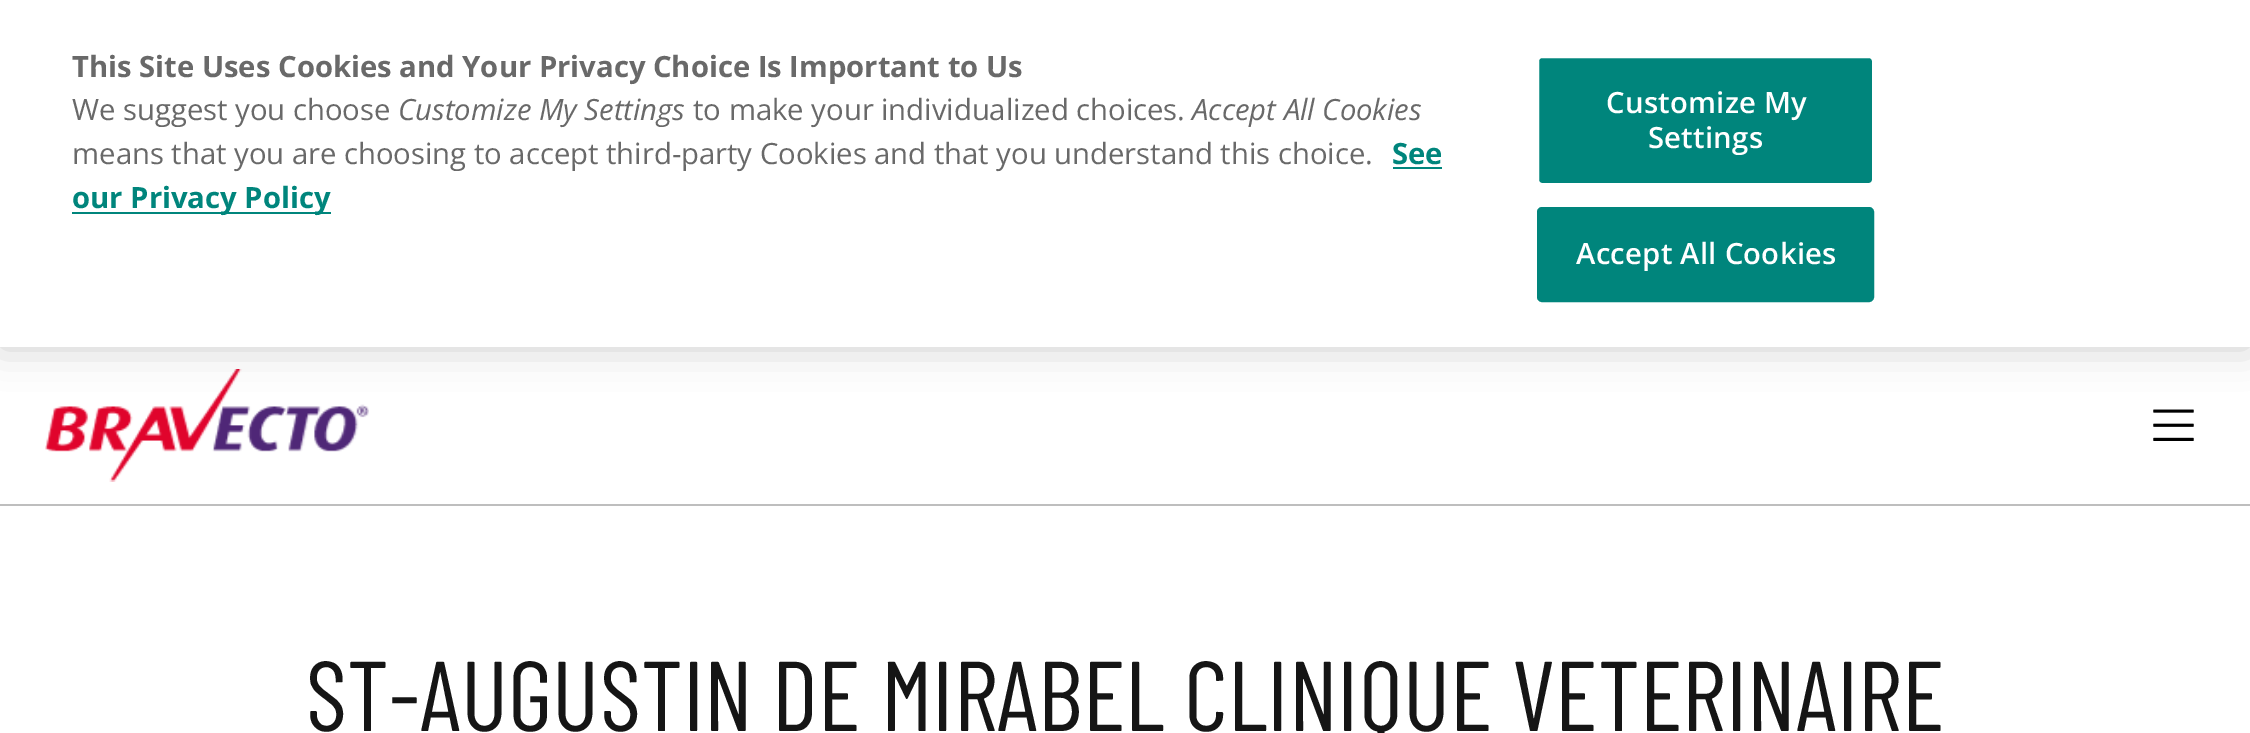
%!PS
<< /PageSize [2250 733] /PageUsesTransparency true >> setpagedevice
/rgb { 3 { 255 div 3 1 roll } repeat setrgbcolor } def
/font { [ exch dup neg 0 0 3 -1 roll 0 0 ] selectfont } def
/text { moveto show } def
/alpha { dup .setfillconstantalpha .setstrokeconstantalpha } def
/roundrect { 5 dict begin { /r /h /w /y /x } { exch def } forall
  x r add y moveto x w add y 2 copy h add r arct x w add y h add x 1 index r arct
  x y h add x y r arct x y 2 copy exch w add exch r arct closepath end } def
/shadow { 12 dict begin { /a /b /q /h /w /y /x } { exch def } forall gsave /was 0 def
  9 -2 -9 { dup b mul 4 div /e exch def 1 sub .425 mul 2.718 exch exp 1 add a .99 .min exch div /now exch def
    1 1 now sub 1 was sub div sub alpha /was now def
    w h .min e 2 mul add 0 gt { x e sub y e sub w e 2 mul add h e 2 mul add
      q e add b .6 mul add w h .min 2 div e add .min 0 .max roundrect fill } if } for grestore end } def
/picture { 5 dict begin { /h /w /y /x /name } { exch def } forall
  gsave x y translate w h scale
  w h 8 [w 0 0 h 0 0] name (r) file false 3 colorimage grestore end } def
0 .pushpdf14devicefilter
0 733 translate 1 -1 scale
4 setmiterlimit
255 255 255 rgb
0 0 2250 733 rectfill
(img_01.rgb) 45 369 324 113 picture
0 0 0 rgb
0 0 2250 347 0 20 0.2 shadow
255 255 255 rgb
0 0 2250 347 rectfill
0 133 124 rgb
1393 167 49 2 rectfill
72 212 259 2 rectfill
1538 57 335 127 4 roundrect gsave fill grestore
255 255 255 rgb
2 setlinewidth
stroke
0 133 124 rgb
1538 208 335 93 4 roundrect gsave fill grestore
stroke
190 190 190 rgb
0 504 2250 2 rectfill
(img_02.rgb) 2153 409 41 32 picture
/OpenSans-Bold 29.25 font
105 105 105 rgb
(This Site Uses Cookies and Your Privacy Choice Is Important to Us) 72 77 text
/OpenSans-Regular 29.25 font
(We suggest you choose) 72 120 text
/OpenSans-Italic 29.25 font
(Customize My Settings) 398 120 text
/OpenSans-Regular 29.25 font
(to make your individualized choices.) 693 120 text
/OpenSans-Italic 29.25 font
(Accept All Cookies) 1192 120 text
/OpenSans-Regular 29.25 font
(means that you are choosing to accept third-party Cookies and that you understand this choice.) 72 164 text
/OpenSans-Bold 29.25 font
0 133 124 rgb
(See) 1392 164 text
(our Privacy Policy) 72 208 text
/OpenSans-SemiBold 29.25 font
255 255 255 rgb
1606 113 moveto 0.25 0 (Customize My) ashow
1648 148 moveto 0.25 0 (Settings) ashow
1576 264 moveto 0.25 0 (Accept All Cookies) ashow
/BarlowCondensed-Regular 99 font
21 21 21 rgb
(ST-AUGUSTIN DE MIRABEL CLINIQUE VETERINAIRE) 306 731 text
.poppdf14devicefilter showpage
